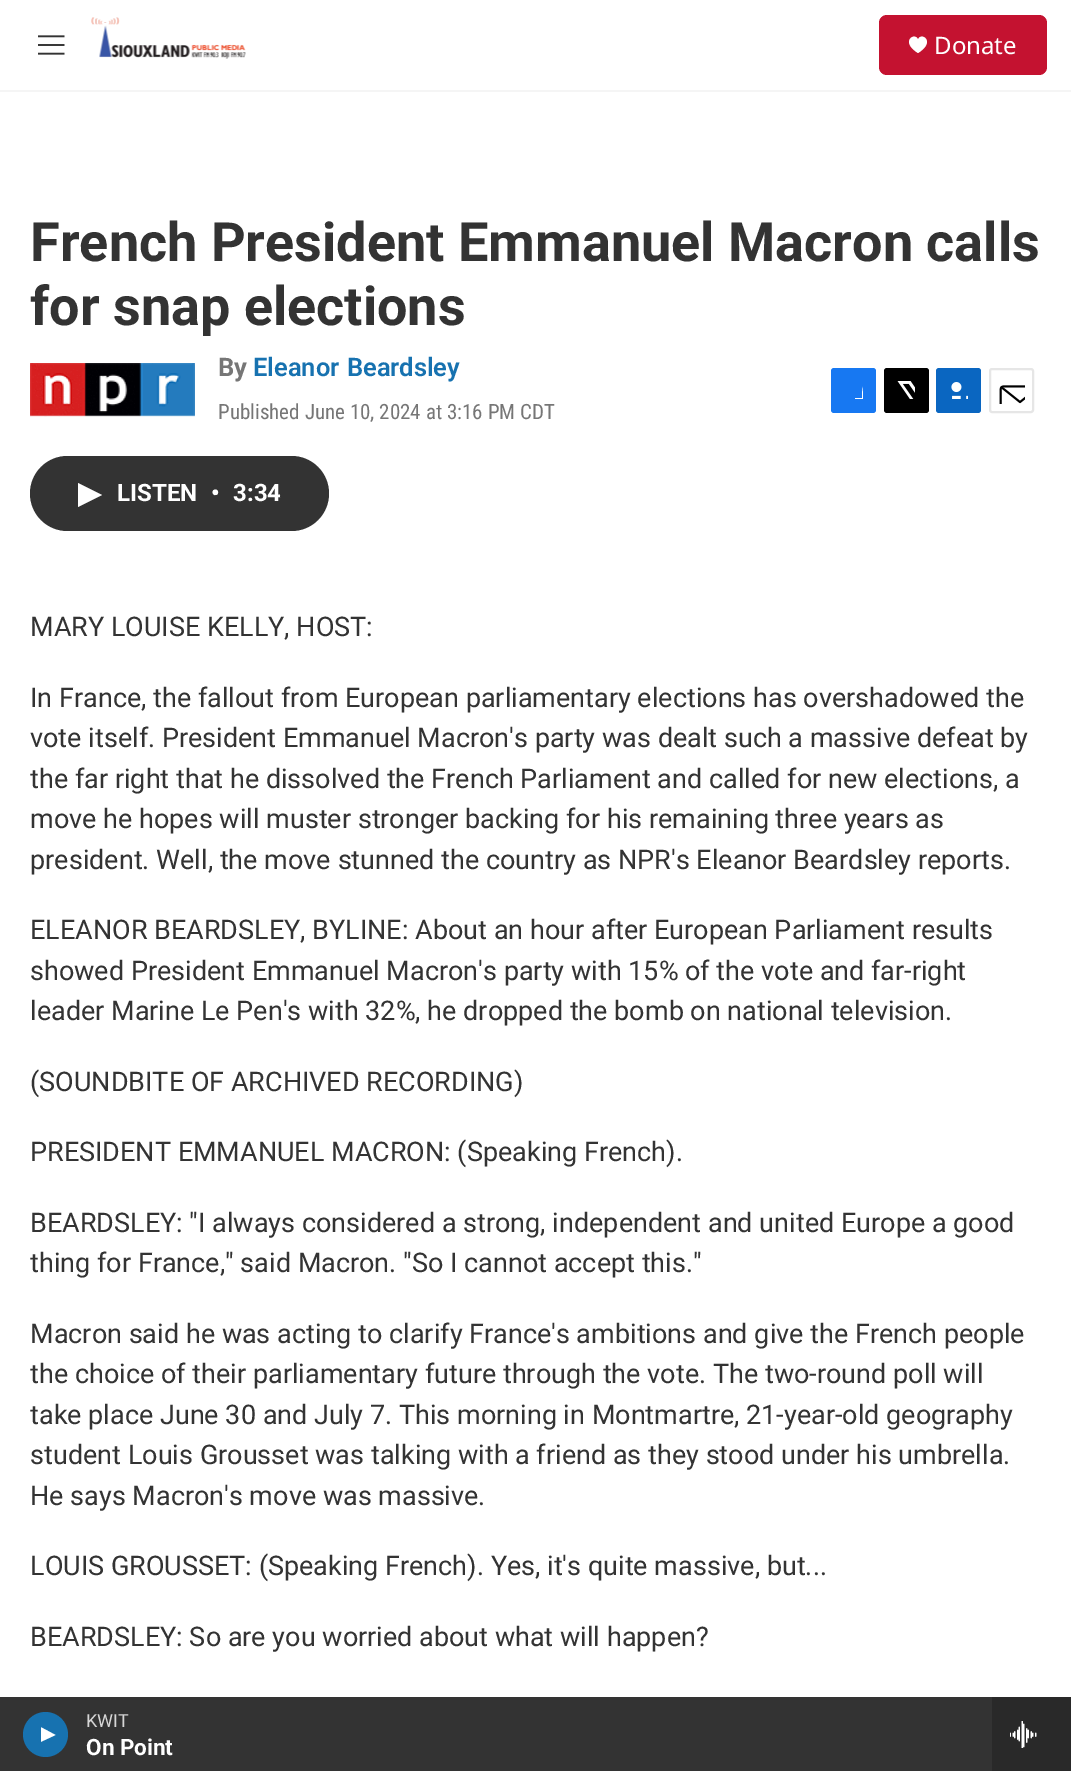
%!PS
<< /PageSize [1071 1771] >> setpagedevice
/rgb { 3 { 255 div 3 1 roll } repeat setrgbcolor } def
/font { [ exch dup neg 0 0 3 -1 roll 0 0 ] selectfont } def
/text { moveto show } def
/circle { newpath 0 360 arc closepath } def
/roundrect { 5 dict begin { /r /h /w /y /x } { exch def } forall
  x r add y moveto x w add y 2 copy h add r arct x w add y h add x 1 index r arct
  x y h add x y r arct x y 2 copy exch w add exch r arct closepath end } def
/picture { 5 dict begin { /h /w /y /x /name } { exch def } forall
  gsave x y translate w h scale
  w h 8 [w 0 0 h 0 0] name (r) file false 3 colorimage grestore end } def
0 1771 translate 1 -1 scale
4 setmiterlimit
255 255 255 rgb
0 0 1071 1771 rectfill
245 245 245 rgb
0 90 1071 2 rectfill
(img_01.rgb) 38 35 27 20 picture
(img_02.rgb) 91 17 155 42 picture
196 18 48 rgb
879 15 168 60 8 roundrect fill
255 255 255 rgb
918 39.5 moveto -3 -8 -18.5 2 0 13.5 rcurveto 18.5 -11.5 3 -21.5 0 -13.5 rcurveto closepath fill
51 51 51 rgb
0 1697 992 74 rectfill
23 114 176 rgb
45.5 1734.5 22.5 circle fill
gsave
41 1727 15 16 rectclip
255 255 255 rgb
40.5 1727 moveto 15 8 rlineto -15 7 rlineto closepath fill
grestore
41 41 41 rgb
992 1697 79 74 rectfill
(img_03.rgb) 1010 1721 27 27 picture
(img_04.rgb) 30 363 165 54 picture
23 120 242 rgb
831 368 45 45 3 roundrect fill
gsave
845 381 18 18 rectclip
255 255 255 rgb
869 413 moveto -7 0 rlineto 0 -8 rlineto -7 0 rlineto 0 -7 rlineto 7 0 rlineto 0 -12.5 1 -18 14 -16 rcurveto 0 7 rlineto -8.5 0 -7 1.5 -7 9 rcurveto 7 0 rlineto -1 7 rlineto -6 0 rlineto closepath fill
grestore
0 0 0 rgb
884 368 45 45 3 roundrect fill
(img_05.rgb) 897 381 18 18 picture
10 102 193 rgb
936 368 45 45 3 roundrect fill
(img_06.rgb) 951 382 17 17 picture
230 230 230 rgb
2 setlinewidth
990 369 43 43 2 roundrect stroke
(img_07.rgb) 999 385 26 19 picture
51 51 51 rgb
30 456 299 75 37.5 roundrect fill
255 255 255 rgb
78 483 moveto 24 12 rlineto -24 12 rlineto closepath fill
/NotoSans-Regular 24 font
(Donate) 934 54 text
/Roboto-Regular 18 font
214 214 214 rgb
(KWIT) 86 1727 text
/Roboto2-Bold 22.5 font
255 255 255 rgb
(On Point) 86 1755 text
/Roboto-Bold 54 font
51 51 51 rgb
(French President Emmanuel Macron calls) 30 261 text
(for snap elections) 30 325 text
/Roboto-Bold 25.5 font
118 118 118 rgb
(By) 218 376 text
/Roboto-SemiBold 25.5 font
23 114 176 rgb
253 376 moveto 1 0 32 (Eleanor Beardsley) widthshow
/RobotoCondensed-Regular 21 font
118 118 118 rgb
(Published June 10, 2024 at 3:16 PM CDT) 218 419 text
/Roboto2-Bold 24 font
255 255 255 rgb
(LISTEN) 117 501 text
(•) 211 501 text
(3:34) 233 501 text
/Roboto-Regular 27 font
51 51 51 rgb
(MARY LOUISE KELLY, HOST:) 30 636 text
(In France, the fallout from European parliamentary elections has overshadowed the) 30 707 text
(vote itself. President Emmanuel Macron's party was dealt such a massive defeat by) 30 747 text
(the far right that he dissolved the French Parliament and called for new elections, a) 30 788 text
(move he hopes will muster stronger backing for his remaining three years as) 30 828 text
(president. Well, the move stunned the country as NPR's Eleanor Beardsley reports.) 30 869 text
(ELEANOR BEARDSLEY, BYLINE: About an hour after European Parliament results) 30 939 text
(showed President Emmanuel Macron's party with 15% of the vote and far-right) 30 980 text
(leader Marine Le Pen's with 32%, he dropped the bomb on national television.) 30 1020 text
(\(SOUNDBITE OF ARCHIVED RECORDING\)) 30 1091 text
(PRESIDENT EMMANUEL MACRON: \(Speaking French\).) 30 1161 text
(BEARDSLEY: "I always considered a strong, independent and united Europe a good) 30 1232 text
(thing for France," said Macron. "So I cannot accept this.") 30 1272 text
(Macron said he was acting to clarify France's ambitions and give the French people) 30 1343 text
(the choice of their parliamentary future through the vote. The two-round poll will) 30 1383 text
(take place June 30 and July 7. This morning in Montmartre, 21-year-old geography) 30 1424 text
(student Louis Grousset was talking with a friend as they stood under his umbrella.) 30 1464 text
(He says Macron's move was massive.) 30 1505 text
(LOUIS GROUSSET: \(Speaking French\). Yes, it's quite massive, but...) 30 1575 text
(BEARDSLEY: So are you worried about what will happen?) 30 1646 text
showpage
